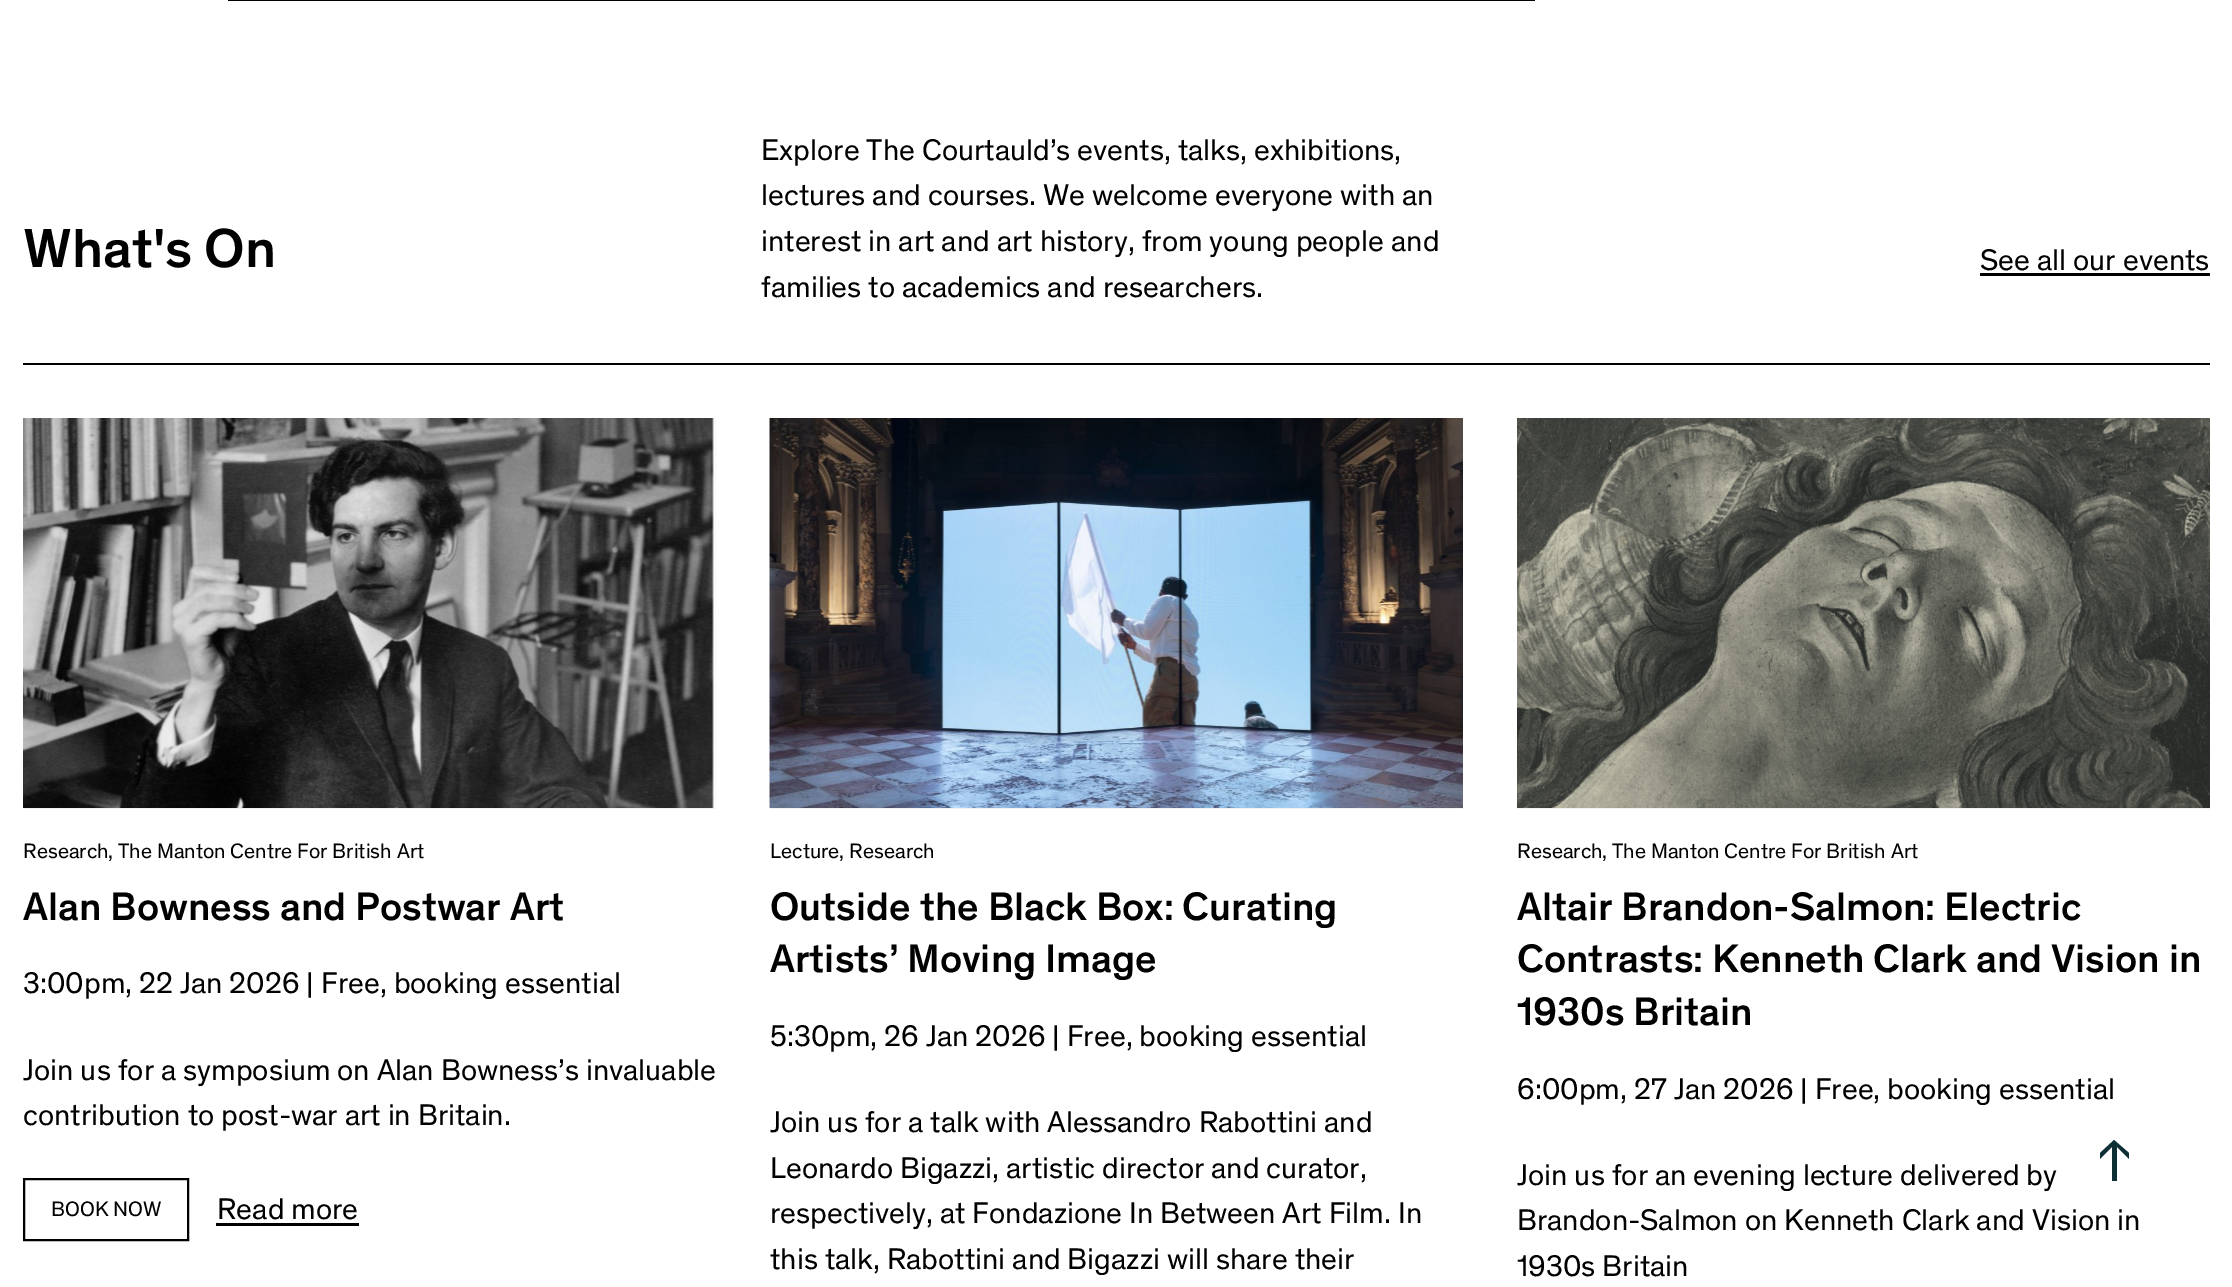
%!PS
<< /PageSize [2232 1287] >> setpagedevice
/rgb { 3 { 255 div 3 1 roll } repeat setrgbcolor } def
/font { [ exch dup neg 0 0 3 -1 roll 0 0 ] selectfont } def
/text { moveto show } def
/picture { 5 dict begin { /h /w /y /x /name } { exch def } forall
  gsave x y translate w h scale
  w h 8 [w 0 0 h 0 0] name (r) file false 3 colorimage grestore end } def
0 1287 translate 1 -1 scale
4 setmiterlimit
255 255 255 rgb
0 0 2232 1287 rectfill
0 0 0 rgb
228 0 1307 1 rectfill
23 363 2187 2 rectfill
1980 273 230 3 rectfill
243 242 241 rgb
23 419 693 390 rectfill
(img_01.rgb) 23 418 693 390 picture
0 0 0 rgb
2 setlinewidth
24 1179 164 61 rectstroke
216 1223 143 3 rectfill
243 242 241 rgb
770 808 693 1 rectfill
(img_02.rgb) 769 418 694 390 picture
1517 808 693 1 rectfill
(img_03.rgb) 1517 418 693 390 picture
14 47 52 rgb
2100 1159 moveto 12 -12 rlineto 0 34 rlineto 5 0 rlineto 0 -34 rlineto 12 12 rlineto 0 -6 rlineto -15 -13 rlineto -14 13 rlineto closepath fill
/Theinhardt-Medium 56 font
0 0 0 rgb
(What's On) 23 267 text
/Theinhardt-Regular 30.4 font
(Explore The Courtauld’s events, talks, exhibitions,) 761 160 text
(lectures and courses. We welcome everyone with an) 761 205 text
(interest in art and art history, from young people and) 761 251 text
(families to academics and researchers.) 761 297 text
(See all our events) 1980 270 text
/Theinhardt-Regular 21.25 font
(Research, The Manton Centre For British Art) 23 858 text
/Theinhardt-Medium 40.5 font
(Alan Bowness and Postwar Art) 23 920 text
/Theinhardt-Regular 30.4 font
(3:00pm, 22 Jan 2026 | Free, booking essential) 23 993 text
(Join us for a symposium on Alan Bowness’s invaluable) 23 1080 text
(contribution to post-war art in Britain.) 23 1125 text
/Theinhardt-Regular 21.25 font
(BOOK NOW) 51 1216 text
/Theinhardt-Regular 30.4 font
(Read more) 217 1219 text
/Theinhardt-Regular 21.25 font
(Lecture, Research) 770 858 text
/Theinhardt-Medium 40.5 font
(Outside the Black Box: Curating) 770 920 text
(Artists’ Moving Image) 770 972 text
/Theinhardt-Regular 30.4 font
(5:30pm, 26 Jan 2026 | Free, booking essential) 770 1046 text
(Join us for a talk with Alessandro Rabottini and) 770 1132 text
(Leonardo Bigazzi, artistic director and curator,) 770 1178 text
(respectively, at Fondazione In Between Art Film. In) 770 1223 text
(this talk, Rabottini and Bigazzi will share their) 770 1269 text
/Theinhardt-Regular 21.25 font
(Research, The Manton Centre For British Art) 1517 858 text
/Theinhardt-Medium 40.5 font
(Altair Brandon-Salmon: Electric) 1517 920 text
(Contrasts: Kenneth Clark and Vision in) 1517 972 text
(1930s Britain) 1517 1025 text
/Theinhardt-Regular 30.4 font
(6:00pm, 27 Jan 2026 | Free, booking essential) 1517 1099 text
(Join us for an evening lecture delivered by) 1517 1185 text
(Brandon-Salmon on Kenneth Clark and Vision in) 1517 1230 text
(1930s Britain) 1517 1276 text
showpage
